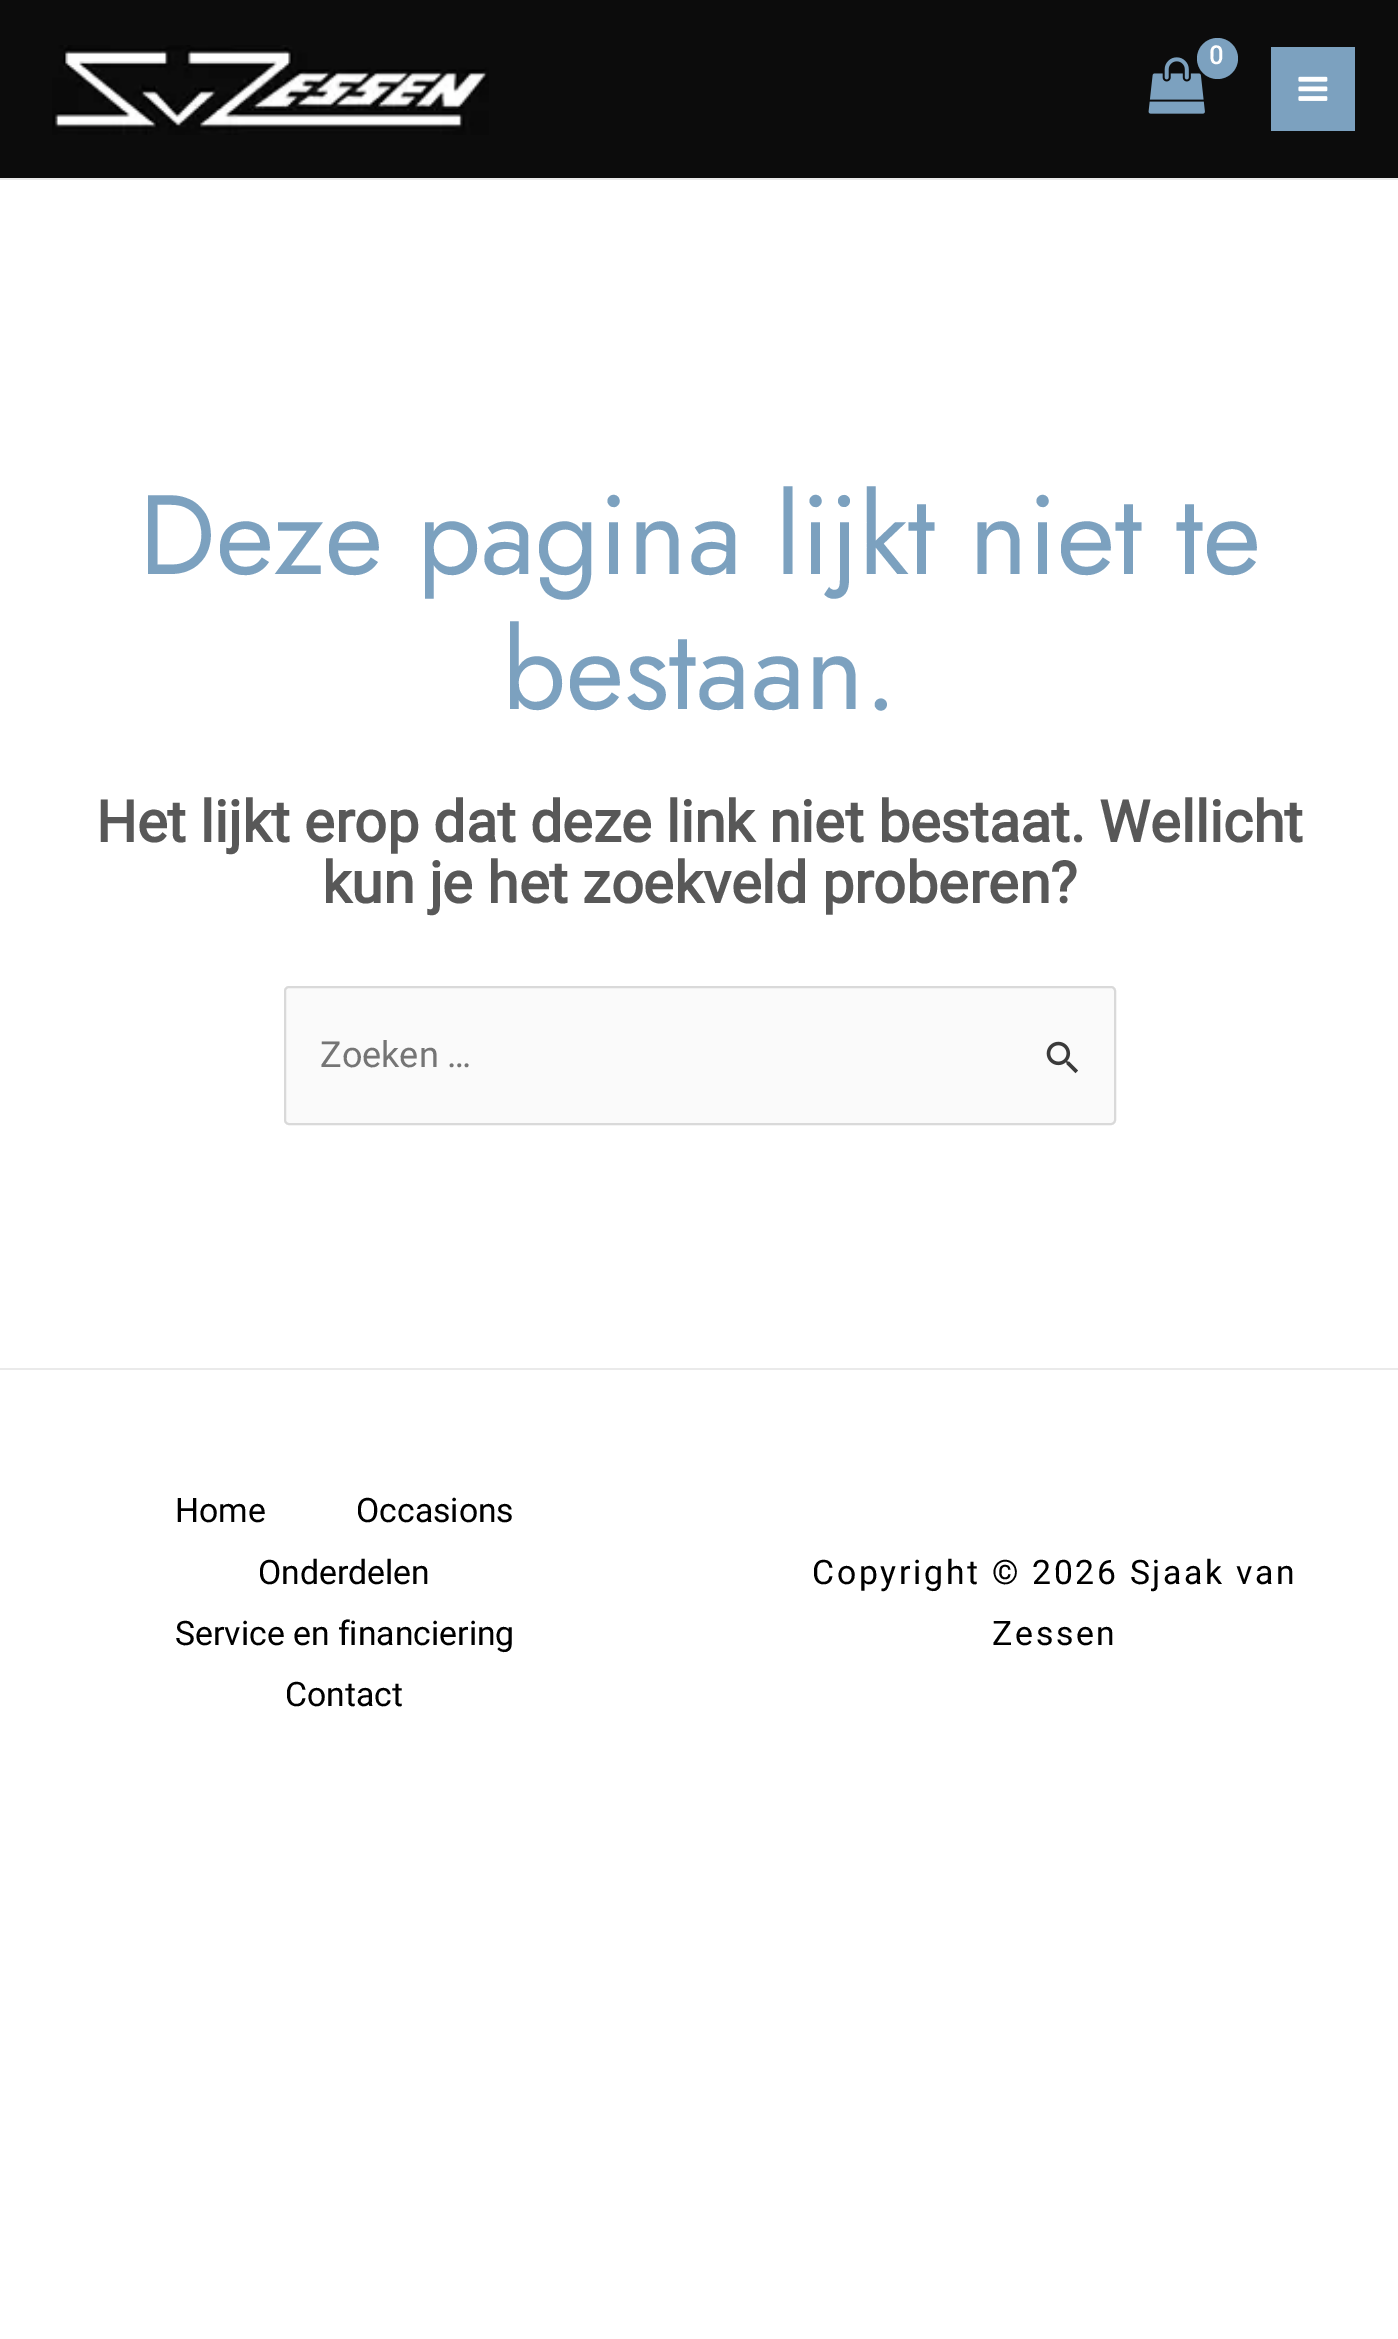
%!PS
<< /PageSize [1398 2339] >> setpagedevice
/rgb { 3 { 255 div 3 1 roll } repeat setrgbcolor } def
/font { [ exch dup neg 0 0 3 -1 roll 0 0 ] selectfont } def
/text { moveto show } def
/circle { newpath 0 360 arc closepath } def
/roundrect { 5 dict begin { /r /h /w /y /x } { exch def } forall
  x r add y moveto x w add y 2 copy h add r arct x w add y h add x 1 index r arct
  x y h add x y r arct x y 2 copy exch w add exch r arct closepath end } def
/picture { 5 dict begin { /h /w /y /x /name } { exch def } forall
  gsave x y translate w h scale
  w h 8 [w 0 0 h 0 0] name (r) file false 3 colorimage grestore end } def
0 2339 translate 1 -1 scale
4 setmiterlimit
255 255 255 rgb
0 0 1398 2339 rectfill
12 12 12 rgb
0 0 1398 178 rectfill
234 234 234 rgb
0 178 1398 2 rectfill
(img_01.rgb) 52 45 437 90 picture
(img_02.rgb) 1148 57 57 57 picture
124 161 191 rgb
1217.5 58.5 20.5 circle fill
1271 47 84 84 rectfill
(img_03.rgb) 1298 76 30 25 picture
250 250 250 rgb
285 987 830 137 4 roundrect gsave fill grestore
217 217 217 rgb
2 setlinewidth
stroke
(img_04.rgb) 1046 1041 32 33 picture
234 234 234 rgb
0 1368 1398 2 rectfill
/Roboto-Bold 25 font
255 255 255 rgb
1209 64 moveto -1 0 (0) ashow
/Jost-Regular 112.5 font
124 161 191 rgb
(Deze pagina lijkt niet te) 139 574 text
(bestaan.) 502 709 text
/Roboto-Bold 57.4 font
88 88 88 rgb
(Het lijkt erop dat deze link niet bestaat. Wellicht) 96 842 text
(kun je het zoekveld proberen?) 322 903 text
/Roboto-Regular 36 font
117 117 117 rgb
(Zoeken …) 320 1067 text
/Roboto-Regular 33.75 font
0 0 0 rgb
(Home) 175 1522 text
(Occasions) 356 1522 text
(Onderdelen) 258 1584 text
(Service en financiering) 175 1645 text
(Contact) 285 1706 text
812 1584 moveto 2.7 0 (Copyright © 2026 Sjaak van) ashow
992 1645 moveto 2.7 0 (Zessen) ashow
showpage
